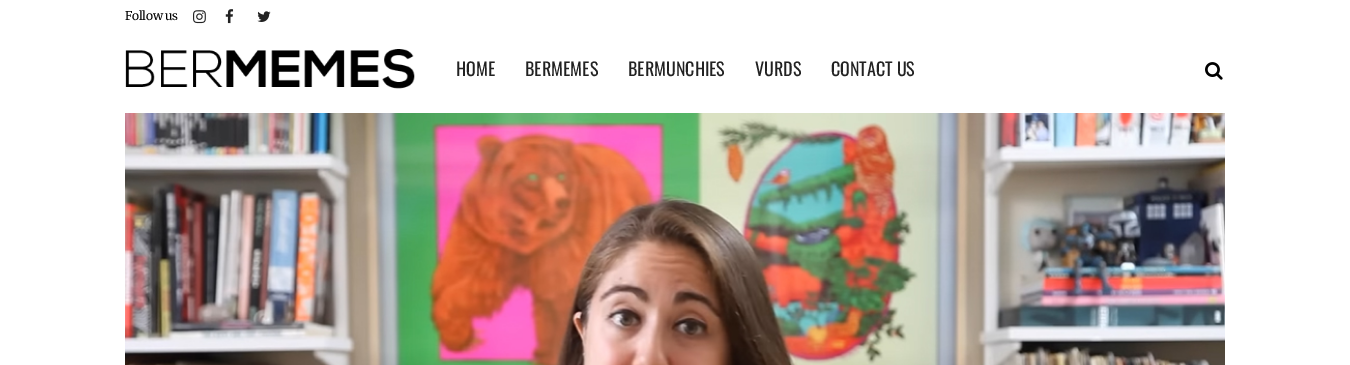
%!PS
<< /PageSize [1350 365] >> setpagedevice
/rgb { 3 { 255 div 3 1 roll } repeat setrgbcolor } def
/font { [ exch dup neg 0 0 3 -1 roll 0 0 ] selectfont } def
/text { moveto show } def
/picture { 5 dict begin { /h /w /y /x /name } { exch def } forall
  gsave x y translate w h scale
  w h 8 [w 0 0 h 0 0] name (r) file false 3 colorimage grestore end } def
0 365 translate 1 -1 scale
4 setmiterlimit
255 255 255 rgb
0 0 1350 365 rectfill
(img_01.rgb) 193 10 13 14 picture
(img_02.rgb) 225 9 9 15 picture
(img_03.rgb) 257 11 14 11 picture
(img_04.rgb) 125 49 290 40 picture
(img_05.rgb) 1205 62 18 18 picture
(img_06.rgb) 125 113 1100 252 picture
/Merriweather-Regular 12 font
0 0 0 rgb
125 20 moveto -0.25 0 (Follow us) ashow
/Oswald-Regular 18 font
34 34 34 rgb
(HOME) 456 76 text
(BERMEMES) 525 76 text
(BERMUNCHIES) 628 76 text
(VURDS) 755 76 text
(CONTACT US) 831 76 text
showpage
